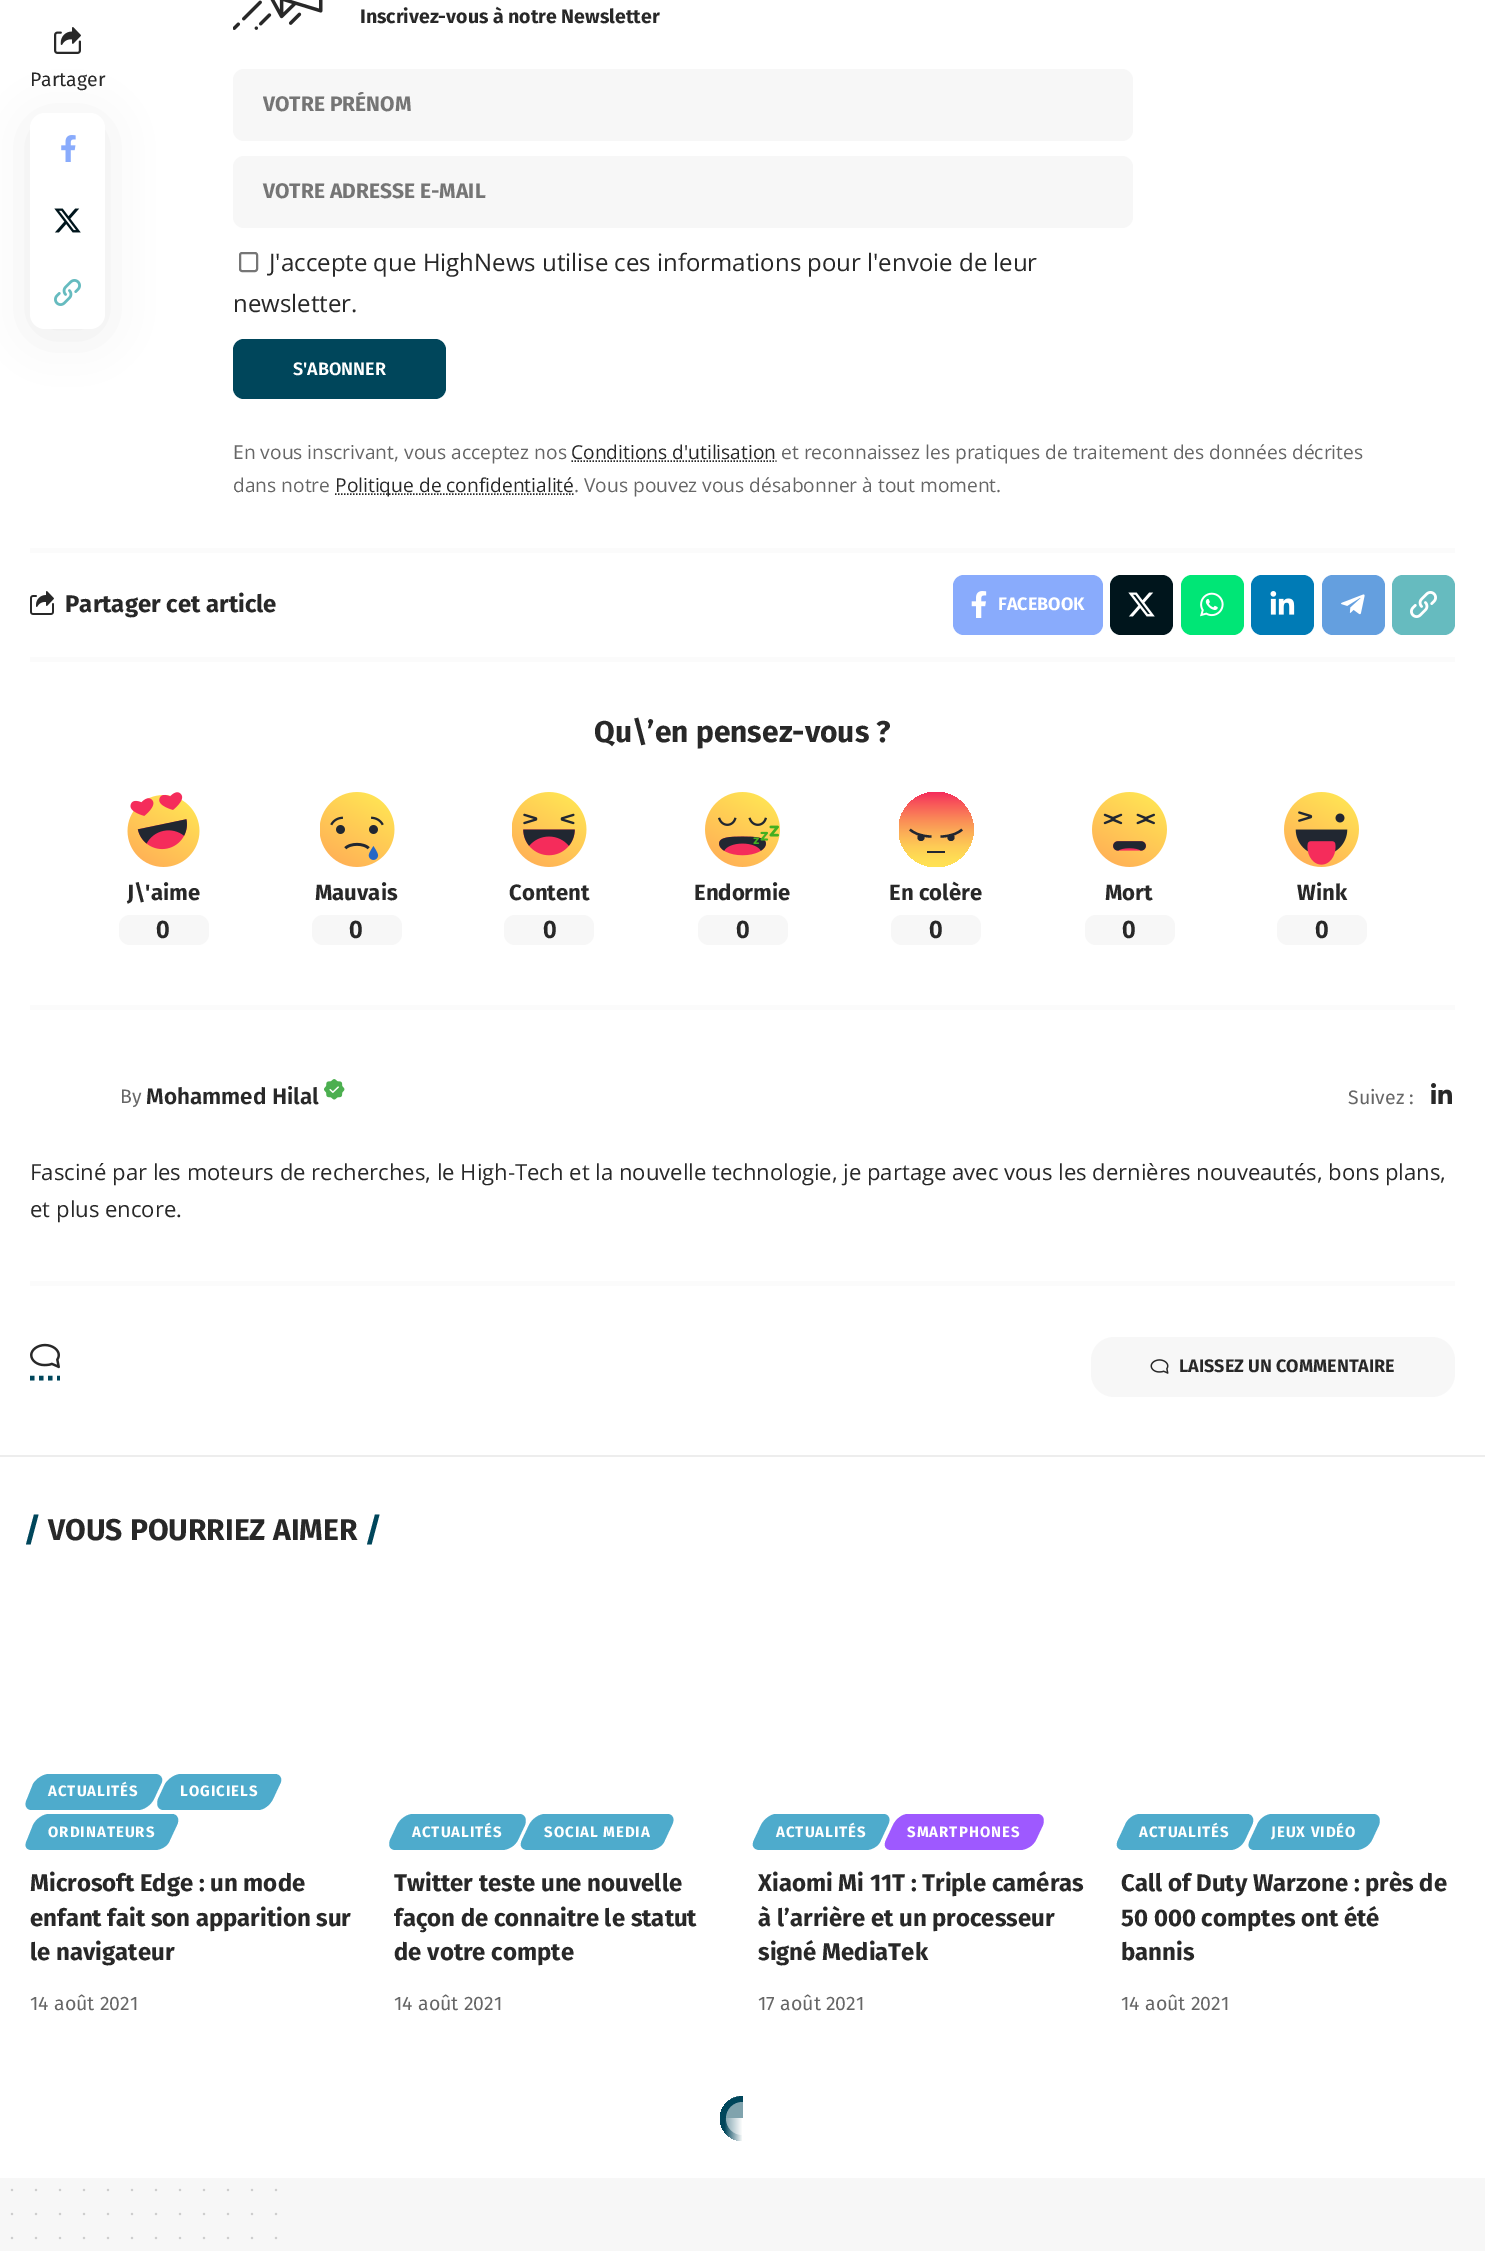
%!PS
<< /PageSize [1485 2251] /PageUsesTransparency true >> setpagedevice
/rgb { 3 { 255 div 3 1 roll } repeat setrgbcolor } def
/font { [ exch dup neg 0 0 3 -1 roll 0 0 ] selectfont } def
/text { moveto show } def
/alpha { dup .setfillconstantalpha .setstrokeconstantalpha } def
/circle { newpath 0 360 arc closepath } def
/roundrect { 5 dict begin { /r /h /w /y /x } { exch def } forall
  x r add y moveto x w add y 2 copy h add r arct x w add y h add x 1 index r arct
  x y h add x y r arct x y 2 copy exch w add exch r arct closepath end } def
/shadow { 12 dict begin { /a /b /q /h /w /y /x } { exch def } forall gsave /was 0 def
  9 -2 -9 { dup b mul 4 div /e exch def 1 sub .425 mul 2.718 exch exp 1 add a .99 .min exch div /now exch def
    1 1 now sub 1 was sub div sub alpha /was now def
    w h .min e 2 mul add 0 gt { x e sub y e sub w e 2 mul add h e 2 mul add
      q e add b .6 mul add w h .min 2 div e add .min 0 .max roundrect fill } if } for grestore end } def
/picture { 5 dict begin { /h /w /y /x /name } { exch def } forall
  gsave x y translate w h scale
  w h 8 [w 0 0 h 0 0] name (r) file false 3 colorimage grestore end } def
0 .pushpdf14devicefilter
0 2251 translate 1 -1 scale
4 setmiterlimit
255 255 255 rgb
0 0 1485 2251 rectfill
0 0 0 rgb
30 120 75 216 15 22.5 0.07 shadow
255 255 255 rgb
30 113 75 216 15 roundrect fill
(img_01.rgb) 61 135 15 27 picture
(img_02.rgb) 54 208 27 25 picture
(img_03.rgb) 54 279 27 27 picture
(img_04.rgb) 54 27 27 27 picture
(img_05.rgb) 233 0 90 30 picture
247 247 247 rgb
233 69 900 72 11 roundrect fill
233 156 900 72 11 roundrect fill
118 118 118 rgb
2 setlinewidth
240 253 17 18 2 roundrect stroke
0 70 91 rgb
233 339 213 60 11 roundrect fill
40 40 40 rgb
1.5 setlinewidth
[1.5 1.5] 0 setdash
571.5 461 moveto 205 0 rlineto stroke
335 494 moveto 239 0 rlineto stroke
251 251 251 rgb
30 548 1425 5 rectfill
(img_06.rgb) 30 591 24 24 picture
137 171 252 rgb
953 575 150 60 11 roundrect fill
(img_07.rgb) 971 591 16 27 picture
0 21 28 rgb
1110 575 63 60 11 roundrect fill
(img_08.rgb) 1128 592 27 25 picture
0 230 118 rgb
1181 575 63 60 11 roundrect fill
(img_09.rgb) 1200 592 24 25 picture
0 123 182 rgb
1251 575 63 60 11 roundrect fill
(img_10.rgb) 1270 591 25 24 picture
100 159 223 rgb
1322 575 63 60 11 roundrect fill
(img_11.rgb) 1341 594 24 21 picture
102 187 191 rgb
1392 575 63 60 11 roundrect fill
(img_12.rgb) 1410 591 27 27 picture
251 251 251 rgb
30 657 1425 5 rectfill
(img_13.rgb) 127 792 73 75 picture
247 247 247 rgb
119 915 90 30 11 roundrect fill
(img_14.rgb) 320 792 75 75 picture
312 915 90 30 11 roundrect fill
(img_15.rgb) 512 792 75 75 picture
504 915 90 30 11 roundrect fill
(img_16.rgb) 705 792 75 75 picture
698 915 90 30 11 roundrect fill
gsave
899 792 75 75 rectclip
gsave 936 829.5 37.5 circle clip newpath
<< /ShadingType 2 /ColorSpace /DeviceRGB /Coords [936 867 936 792] /Extend [true true] /Function << /FunctionType 3 /Domain [0 1] /Functions [<< /FunctionType 2 /Domain [0 1] /C0 [1 0.886 0.329] /C1 [1 0.863 0.329] /N 1 >> << /FunctionType 2 /Domain [0 1] /C0 [1 0.863 0.329] /C1 [0.996 0.8 0.333] /N 1 >> << /FunctionType 2 /Domain [0 1] /C0 [0.996 0.8 0.333] /C1 [0.988 0.694 0.337] /N 1 >> << /FunctionType 2 /Domain [0 1] /C0 [0.988 0.694 0.337] /C1 [0.98 0.545 0.341] /N 1 >> << /FunctionType 2 /Domain [0 1] /C0 [0.98 0.545 0.341] /C1 [0.973 0.357 0.349] /N 1 >> << /FunctionType 2 /Domain [0 1] /C0 [0.973 0.357 0.349] /C1 [0.961 0.173 0.357] /N 1 >>] /Bounds [0.12 0.27 0.44 0.63 0.83] /Encode [0 1 0 1 0 1 0 1 0 1 0 1] >> >> shfill grestore
grestore
33 39 49 rgb
921 837.5 3.5 circle fill
951 837.5 3.5 circle fill
2.3 setlinewidth
[] 0 setdash
910 829.5 moveto 2.5 2.5 9.5 7 21.5 7 rcurveto 962 829.5 moveto -2.5 2.5 -9.5 7 -21.5 7 rcurveto stroke
927 851 18 2 rectfill
247 247 247 rgb
891 915 90 30 11 roundrect fill
(img_17.rgb) 1092 792 75 75 picture
1085 915 90 30 11 roundrect fill
(img_18.rgb) 1284 792 75 75 picture
1277 915 90 30 11 roundrect fill
251 251 251 rgb
30 1005 1425 5 rectfill
(img_19.rgb) 324 1079 21 21 picture
(img_20.rgb) 1431 1083 21 21 picture
30 1281 1425 5 rectfill
0 70 91 rgb
4.5 setlinewidth
30 1378 moveto 4.5 0 rlineto 39 1378 moveto 4.5 0 rlineto 48 1378 moveto 4.5 0 rlineto 57 1378 moveto 3 0 rlineto stroke
(img_21.rgb) 30 1343 30 26 picture
247 247 247 rgb
1091 1337 364 60 23 roundrect fill
(img_22.rgb) 1150 1359 19 15 picture
237 237 237 rgb
0 1455 1485 2 rectfill
0 70 91 rgb
375 1514.5 moveto 4.5 0 rlineto -8 30 rlineto -4.5 0 rlineto closepath fill
34 1514.5 moveto 4.5 0 rlineto -8 30 rlineto -4.5 0 rlineto closepath fill
78 171 204 rgb
49 1774 moveto 106 0 rlineto 6 0 9 5 6 10 rcurveto -7 15 rlineto -3 6 -10 11 -16 11 rcurveto -106 0 rlineto -6 0 -8 -5 -5 -11 rcurveto 6 -15 rlineto 3 -5 10 -10 16 -10 rcurveto closepath fill
181 1774 moveto 94 0 rlineto 5 0 8 5 5 10 rcurveto -7 15 rlineto -3 6 -9 11 -15 11 rcurveto -94 0 rlineto -6 0 -8 -5 -6 -11 rcurveto 7 -15 rlineto 3 -5 10 -10 16 -10 rcurveto closepath fill
49 1814 moveto 123 0 rlineto 5 0 8 5 5 11 rcurveto -7 15 rlineto -2 6 -9 10 -15 10 rcurveto -123 0 rlineto -6 0 -8 -4 -5 -10 rcurveto 6 -15 rlineto 3 -6 10 -11 16 -11 rcurveto closepath fill
413 1814 moveto 106 0 rlineto 6 0 8 5 6 11 rcurveto -7 15 rlineto -3 6 -10 10 -16 10 rcurveto -106 0 rlineto -6 0 -8 -4 -6 -10 rcurveto 7 -15 rlineto 3 -6 10 -11 16 -11 rcurveto closepath fill
545 1814 moveto 122 0 rlineto 6 0 8 5 5 11 rcurveto -7 15 rlineto -2 6 -9 10 -15 10 rcurveto -122 0 rlineto -6 0 -9 -4 -6 -10 rcurveto 7 -15 rlineto 3 -6 10 -11 16 -11 rcurveto closepath fill
776 1814 moveto 107 0 rlineto 6 0 8 5 5 11 rcurveto -7 15 rlineto -2 6 -9 10 -15 10 rcurveto -106 0 rlineto -6 0 -9 -4 -6 -10 rcurveto 7 -15 rlineto 3 -6 10 -11 15 -11 rcurveto closepath fill
158 89 255 rgb
908 1814 moveto 129 0 rlineto 6 0 8 5 6 11 rcurveto -7 15 rlineto -3 6 -10 10 -16 10 rcurveto -129 0 rlineto -5 0 -8 -4 -5 -10 rcurveto 7 -15 rlineto 3 -6 9 -11 15 -11 rcurveto closepath fill
78 171 204 rgb
1140 1814 moveto 107 0 rlineto 5 0 8 5 5 11 rcurveto -7 15 rlineto -3 6 -9 10 -15 10 rcurveto -107 0 rlineto -5 0 -8 -4 -5 -10 rcurveto 7 -15 rlineto 2 -6 9 -11 15 -11 rcurveto closepath fill
1272 1814 moveto 101 0 rlineto 6 0 8 5 6 11 rcurveto -7 15 rlineto -3 6 -10 10 -16 10 rcurveto -101 0 rlineto -6 0 -8 -4 -5 -10 rcurveto 7 -15 rlineto 2 -6 9 -11 15 -11 rcurveto closepath fill
gsave 742.5 2118.5 22.5 circle clip newpath
<< /ShadingType 2 /ColorSpace /DeviceRGB /Coords [720 2118 765 2118] /Extend [true true] /Function << /FunctionType 3 /Domain [0 1] /Functions [<< /FunctionType 2 /Domain [0 1] /C0 [0 0.275 0.357] /C1 [0 0.275 0.357] /N 1 >> << /FunctionType 2 /Domain [0 1] /C0 [0 0.275 0.357] /C1 [1 1 1] /N 1 >> << /FunctionType 2 /Domain [0 1] /C0 [1 1 1] /C1 [1 1 1] /N 1 >>] /Bounds [0.1 0.5] /Encode [0 1 0 1 0 1] >> >> shfill grestore
gsave
720 2096 45 45 22.5 roundrect clip newpath
0 70 91 rgb
742 2096 moveto 1 0 rlineto 0 22 rlineto -23 0 rlineto 0 -12 10 -22 22 -22 rcurveto closepath fill
grestore
0.5 alpha
255 255 255 rgb
742.5 2118.5 16.5 circle fill
1 alpha
247 247 247 rgb
0 2178 1485 73 rectfill
206 206 206 rgb
2.2 setlinewidth
1 setlinecap
[0 24] 0 setdash
12 2190 moveto 264.3 0 rlineto stroke
12 2214 moveto 264.3 0 rlineto stroke
12 2238 moveto 264.3 0 rlineto stroke
/FiraSans-Regular 19.5 font
40 40 40 rgb
(Partager) 30 86 text
/FiraSans-Bold 19.5 font
(Inscrivez-vous à notre Newsletter) 360 23 text
gsave
263 92 840 25 rectclip
/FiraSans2-Bold 21 font
117 117 117 rgb
(VOTRE PRÉNOM) 263 111 text
grestore
/FiraSans2-Bold 21 font
117 117 117 rgb
(VOTRE ADRESSE E-MAIL) 263 198 text
/OpenSans-Regular 24 font
40 40 40 rgb
(J'accepte que HighNews utilise ces informations pour l'envoie de leur) 269 271 text
(newsletter.) 233 312 text
/FiraSans-SemiBold 18 font
255 255 255 rgb
(S'ABONNER) 293 375 text
/OpenSans-Regular 19.2 font
102 102 102 rgb
(En vous inscrivant, vous acceptez nos) 233 459 text
40 40 40 rgb
(Conditions d'utilisation) 571 459 text
102 102 102 rgb
(et reconnaissez les pratiques de traitement des données décrites) 781 459 text
gsave
233 -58 1140 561 23 roundrect clip newpath
(dans notre) 233 492 text
grestore
40 40 40 rgb
(Politique de confidentialité) 335 492 text
102 102 102 rgb
(. Vous pouvez vous désabonner à tout moment.) 574 492 text
/FiraSans2-Bold 24 font
40 40 40 rgb
(Partager cet article) 65 612 text
/FiraSans2-Bold 18 font
255 255 255 rgb
(FACEBOOK) 998 610 text
/FiraSans2-Bold 30 font
40 40 40 rgb
(Qu\\’en pensez-vous ?) 594 742 text
/FiraSans2-Bold 22.08 font
(J\\'aime) 127 900 text
/OpenSans-Bold 24 font
(0) 156 938 text
/FiraSans2-Bold 22.08 font
(Mauvais) 315 900 text
/OpenSans-Bold 24 font
(0) 349 938 text
/FiraSans2-Bold 22.08 font
(Content) 509 900 text
/OpenSans-Bold 24 font
(0) 543 938 text
/FiraSans2-Bold 22.08 font
(Endormie) 694 900 text
/OpenSans-Bold 24 font
(0) 736 938 text
/FiraSans2-Bold 22.08 font
(En colère) 889 900 text
/OpenSans-Bold 24 font
(0) 929 938 text
/FiraSans2-Bold 22.08 font
(Mort) 1105 900 text
/OpenSans-Bold 24 font
(0) 1122 938 text
/FiraSans2-Bold 22.08 font
(Wink) 1297 900 text
/OpenSans-Bold 24 font
(0) 1315 938 text
/FiraSans-Regular 19.5 font
102 102 102 rgb
(By) 120 1103 text
/FiraSans-SemiBold 22.5 font
40 40 40 rgb
(Mohammed Hilal) 146 1104 text
/FiraSans-Regular 19.5 font
102 102 102 rgb
(Suivez :) 1348 1104 text
/OpenSans-Regular 22.08 font
40 40 40 rgb
(Fasciné par les moteurs de recherches, le High-Tech et la nouvelle technologie, je partage avec vous les dernières nouveautés, bons plans,) 30 1180 text
(et plus encore.) 30 1217 text
/FiraSans2-Bold 18 font
(LAISSEZ UN COMMENTAIRE) 1179 1372 text
/FiraSans2-Bold 30 font
(VOUS POURRIEZ AIMER) 48 1540 text
/FiraSans2-Bold 15 font
255 255 255 rgb
48 1796 moveto 1 0 (ACTUALITÉS) ashow
180 1796 moveto 1 0 (LOGICIELS) ashow
48 1837 moveto 1 0 (ORDINATEURS) ashow
/FiraSans-Bold 24 font
40 40 40 rgb
(Microsoft Edge : un mode) 30 1891 text
(enfant fait son apparition sur) 30 1926 text
(le navigateur) 30 1960 text
/FiraSans-Regular 19.5 font
102 102 102 rgb
(14 août 2021) 30 2010 text
/FiraSans2-Bold 15 font
255 255 255 rgb
412 1837 moveto 1 0 (ACTUALITÉS) ashow
544 1837 moveto 1 0 (SOCIAL MEDIA) ashow
/FiraSans-Bold 24 font
40 40 40 rgb
(Twitter teste une nouvelle) 394 1891 text
(façon de connaitre le statut) 394 1926 text
(de votre compte) 394 1960 text
/FiraSans-Regular 19.5 font
102 102 102 rgb
(14 août 2021) 394 2010 text
/FiraSans2-Bold 15 font
255 255 255 rgb
776 1837 moveto 1 0 (ACTUALITÉS) ashow
907 1837 moveto 1 0 (SMARTPHONES) ashow
/FiraSans-Bold 24 font
40 40 40 rgb
(Xiaomi Mi 11T : Triple caméras) 758 1891 text
(à l’arrière et un processeur) 758 1926 text
(signé MediaTek) 758 1960 text
/FiraSans-Regular 19.5 font
102 102 102 rgb
(17 août 2021) 758 2010 text
/FiraSans2-Bold 15 font
255 255 255 rgb
1139 1837 moveto 1 0 (ACTUALITÉS) ashow
1271 1837 moveto 1 0 (JEUX VIDÉO) ashow
/FiraSans-Bold 24 font
40 40 40 rgb
(Call of Duty Warzone : près de) 1121 1891 text
(50 000 comptes ont été) 1121 1926 text
(bannis) 1121 1960 text
/FiraSans-Regular 19.5 font
102 102 102 rgb
(14 août 2021) 1121 2010 text
.poppdf14devicefilter showpage
